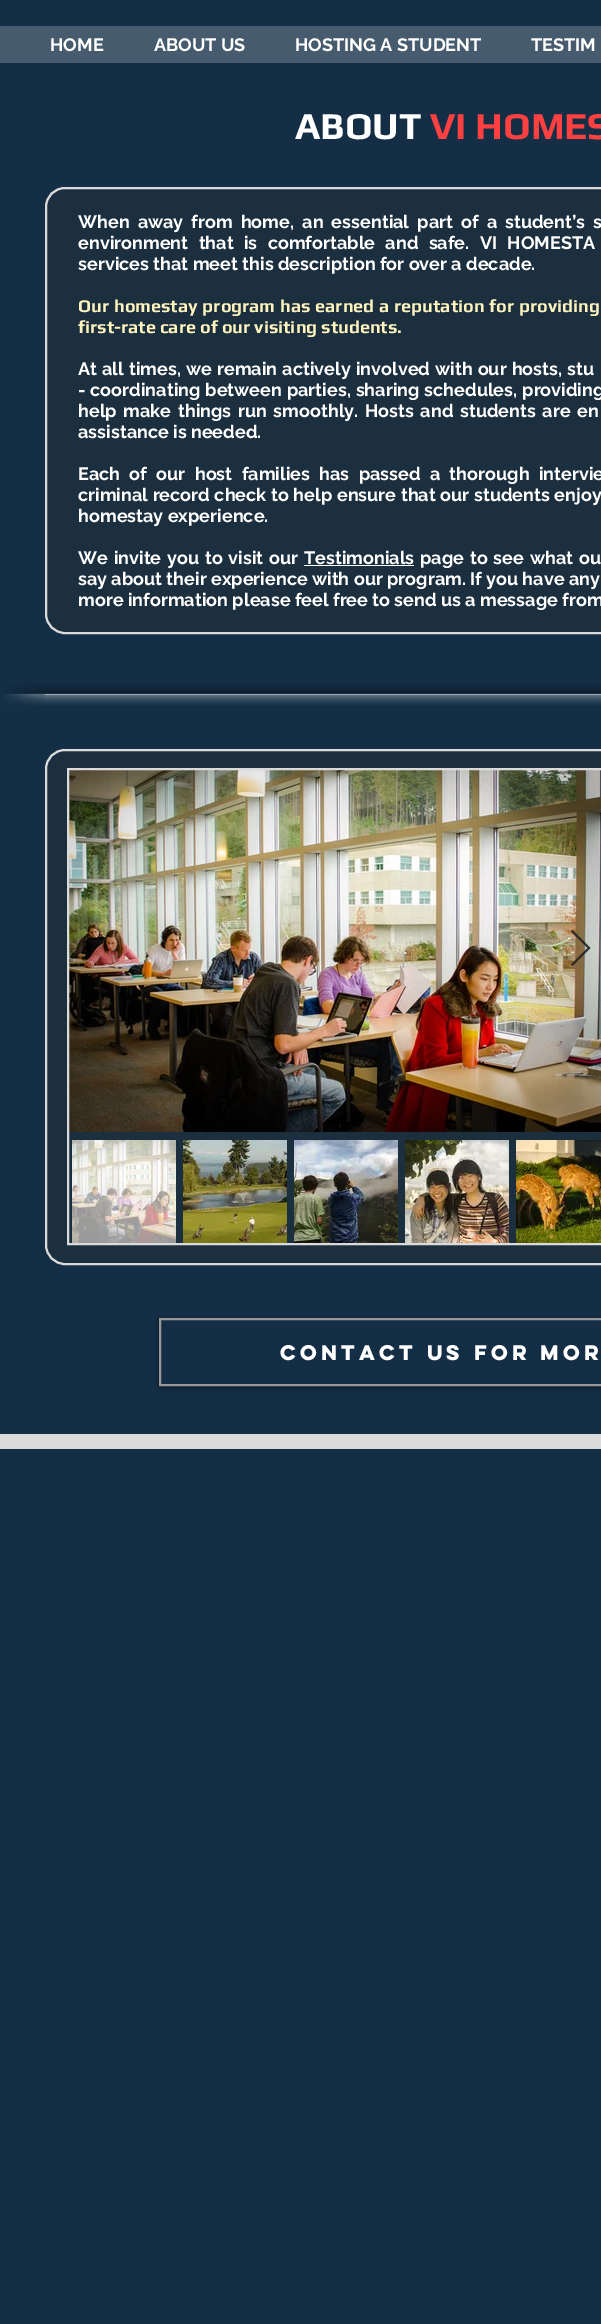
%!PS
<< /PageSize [601 2324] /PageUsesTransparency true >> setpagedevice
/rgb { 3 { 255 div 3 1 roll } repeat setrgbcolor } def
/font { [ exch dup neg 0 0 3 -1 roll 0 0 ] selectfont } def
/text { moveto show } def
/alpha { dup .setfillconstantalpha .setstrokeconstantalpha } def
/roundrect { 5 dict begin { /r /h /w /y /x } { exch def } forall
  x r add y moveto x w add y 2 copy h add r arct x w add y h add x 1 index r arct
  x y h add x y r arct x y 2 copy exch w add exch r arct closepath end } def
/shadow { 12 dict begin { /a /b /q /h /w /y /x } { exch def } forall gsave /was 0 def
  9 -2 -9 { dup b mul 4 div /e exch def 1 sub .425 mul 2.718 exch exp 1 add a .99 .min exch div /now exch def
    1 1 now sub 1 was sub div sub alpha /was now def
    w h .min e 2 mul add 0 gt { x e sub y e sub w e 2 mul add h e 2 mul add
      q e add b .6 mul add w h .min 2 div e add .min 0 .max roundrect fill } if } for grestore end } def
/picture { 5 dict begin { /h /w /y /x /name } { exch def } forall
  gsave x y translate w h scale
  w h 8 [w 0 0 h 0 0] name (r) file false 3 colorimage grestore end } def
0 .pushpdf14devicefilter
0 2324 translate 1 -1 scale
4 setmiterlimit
19 46 69 rgb
0 0 601 2324 rectfill
70 91 109 rgb
0 26 601 37 rectfill
28 47 63 rgb
46 188 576 445 19 roundrect gsave fill grestore
219 219 219 rgb
2 setlinewidth
stroke
255 255 255 rgb
304 565 110 1 rectfill
(img_01.rgb) 45 684 556 21 picture
(img_02.rgb) 3 684 42 21 picture
28 47 63 rgb
46 750 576 514 19 roundrect gsave fill grestore
219 219 219 rgb
stroke
(img_03.rgb) 69 770 532 362 picture
0.9 alpha
34 34 34 rgb
571 931.5 moveto 1.5 -1.5 rlineto 18 18 rlineto -18 18 rlineto -1.5 -1.5 rlineto 16.5 -16.5 rlineto closepath fill
1 alpha
(img_04.rgb) 72 1140 104 103 picture
(img_05.rgb) 183 1140 104 103 picture
(img_06.rgb) 294 1140 104 103 picture
(img_07.rgb) 405 1140 104 103 picture
(img_08.rgb) 516 1140 85 103 picture
219 219 219 rgb
68 769 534 475 rectstroke
gsave
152 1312 moveto 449 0 rlineto 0 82 rlineto -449 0 rlineto closepath 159 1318 moveto 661 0 rlineto 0 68 rlineto -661 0 rlineto closepath eoclip newpath
0 0 0 rgb
159 1319 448 68 0 2 0.6 shadow
grestore
153 153 153 rgb
160 1319 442 66 rectstroke
219 219 219 rgb
0 1434 601 15 rectfill
/Raleway-Bold 18 font
255 255 255 rgb
(HOME) 50 51 text
(ABOUT US) 154 51 text
(HOSTING A STUDENT) 295 51 text
(TESTIM) 531 51 text
/Play-Bold 38 font
(ABOUT) 295 139 text
255 64 64 rgb
(VI HOMES) 430 139 text
/Raleway-Bold 18 font
255 255 255 rgb
78 228 moveto 3.75 0 32 (When away from home, an essential part of a student’s s) widthshow
78 249 moveto 6 0 32 (environment that is comfortable and safe. VI HOMESTA) widthshow
(services that meet this description for over a decade.) 78 270 text
/Play-Bold 18 font
255 244 189 rgb
78 312 moveto 0.75 0 32 (Our homestay program has earned a reputation for providing) widthshow
(first-rate care of our visiting students.) 78 333 text
/Raleway-Bold 18 font
255 255 255 rgb
78 375 moveto 0.75 0 32 (At all times, we remain actively involved with our hosts, stu) widthshow
78 396 moveto 0.5 0 32 (- coordinating between parties, sharing schedules, providing) widthshow
78 417 moveto 2.25 0 32 (help make things run smoothly. Hosts and students are en) widthshow
(assistance is needed.) 78 438 text
78 480 moveto 5 0 32 (Each of our host families has passed a thorough intervie) widthshow
78 501 moveto 0.25 0 32 (criminal record check to help ensure that our students enjoy) widthshow
(homestay experience.) 78 522 text
78 564 moveto 1.5 0 32 (We invite you to visit our) widthshow
(Testimonials) 304 564 text
420 564 moveto 1.5 0 32 (page to see what ou) widthshow
(say about their experience with our program. If you have any) 78 585 text
(more information please feel free to send us a message from) 78 606 text
/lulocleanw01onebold-Bold 19 font
(CONTACT US FOR MOR) 280 1360 text
.poppdf14devicefilter showpage
